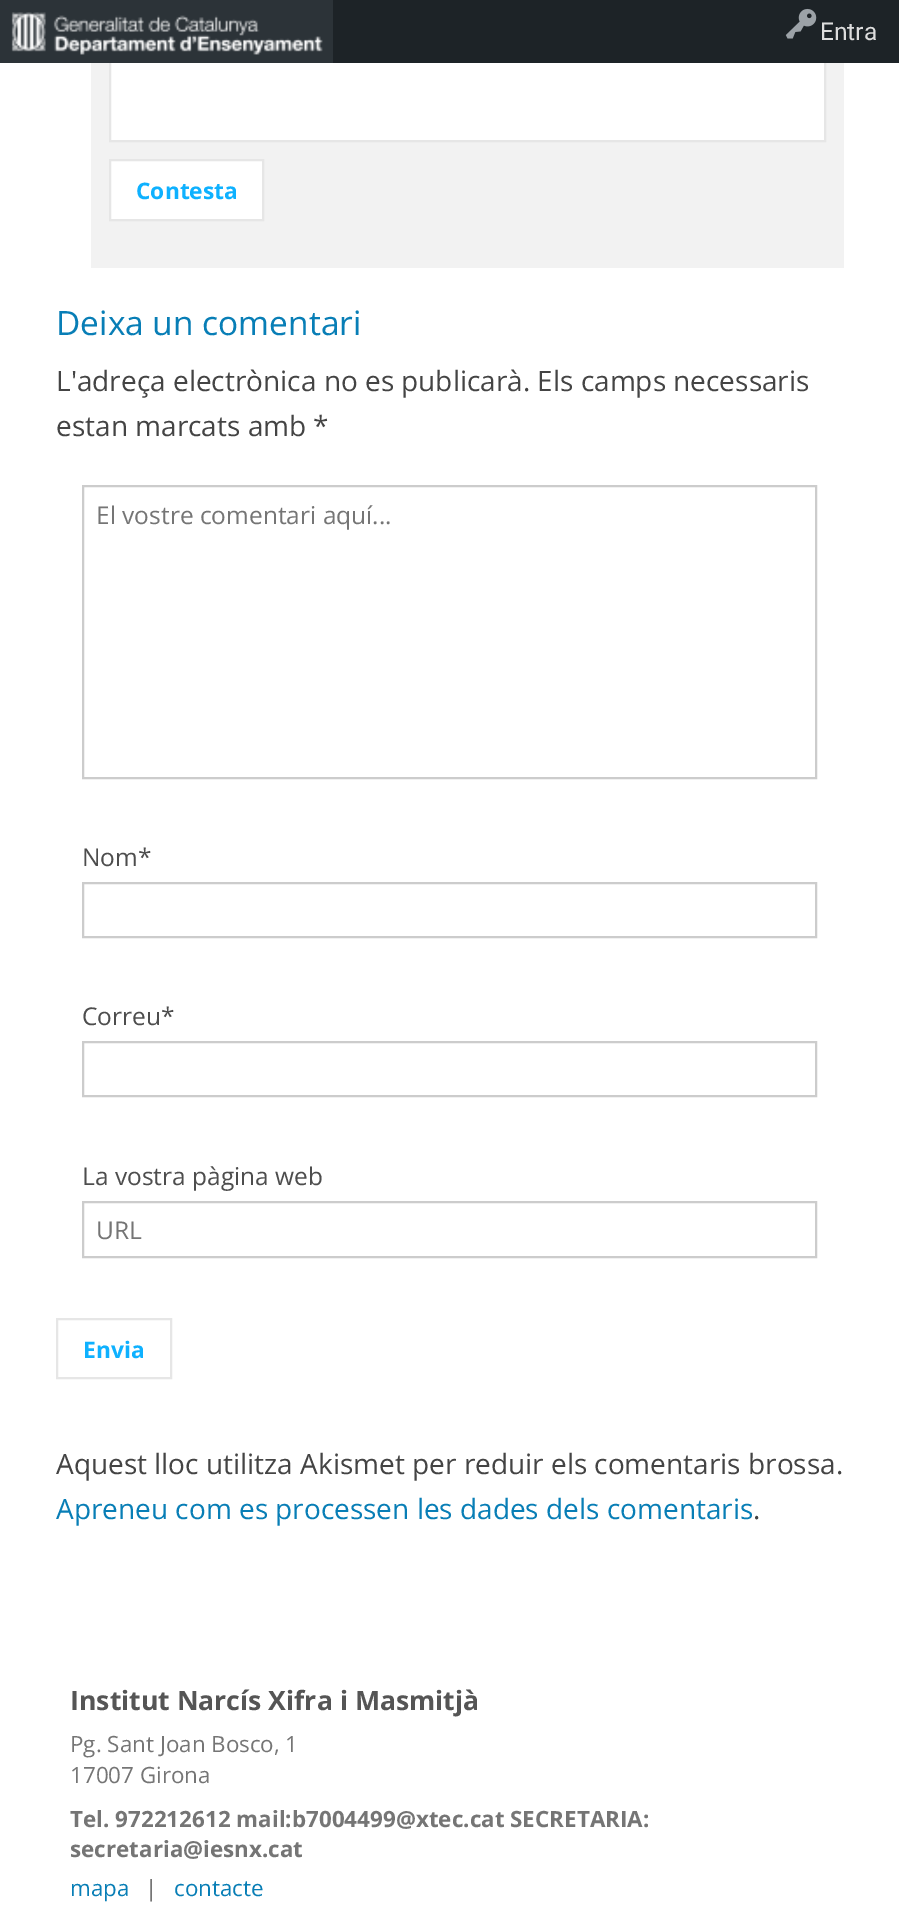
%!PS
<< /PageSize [899 1906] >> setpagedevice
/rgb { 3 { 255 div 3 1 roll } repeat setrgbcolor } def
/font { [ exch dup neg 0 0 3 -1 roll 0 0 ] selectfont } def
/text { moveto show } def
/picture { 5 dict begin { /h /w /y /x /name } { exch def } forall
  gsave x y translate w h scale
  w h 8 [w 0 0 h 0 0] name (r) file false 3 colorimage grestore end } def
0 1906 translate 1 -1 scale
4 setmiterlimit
255 255 255 rgb
0 0 899 1906 rectfill
242 242 242 rgb
91 63 753 205 rectfill
255 255 255 rgb
111 63 713 77 rectfill
230 230 230 rgb
2 setlinewidth
110 -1 715 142 rectstroke
29 35 39 rgb
333 0 566 63 rectfill
44 51 56 rgb
0 0 333 63 rectfill
(img_01.rgb) 11 12 312 43 picture
(img_02.rgb) 785 8 32 31 picture
255 255 255 rgb
110 160 moveto 153 0 rlineto 0 60 rlineto -153 0 rlineto closepath gsave fill grestore
230 230 230 rgb
stroke
204 204 204 rgb
83 486 733 292 rectstroke
83 883 733 54 rectstroke
83 1042 733 54 rectstroke
83 1202 733 55 rectstroke
230 230 230 rgb
57 1319 114 59 rectstroke
/Roboto-Regular 24.5 font
221 221 221 rgb
(Entra) 820 40 text
/OpenSans-Bold 22.75 font
14 177 255 rgb
(Contesta) 136 199 text
/OpenSans-Regular 33.5 font
8 126 182 rgb
(Deixa un comentari) 56 335 text
/OpenSans-Regular 28 font
68 68 68 rgb
(L'adreça electrònica no es publicarà. Els camps necessaris) 56 391 text
(estan marcats amb *) 56 436 text
/OpenSans-Regular 24.5 font
117 117 117 rgb
(El vostre comentari aquí...) 96 524 text
77 77 77 rgb
(Nom*) 82 866 text
(Correu*) 82 1025 text
(La vostra pàgina web) 82 1185 text
117 117 117 rgb
(URL) 96 1239 text
/OpenSans-Bold 22.75 font
14 177 255 rgb
(Envia) 83 1358 text
/OpenSans-Regular 28 font
68 68 68 rgb
(Aquest lloc utilitza Akismet per reduir els comentaris brossa.) 56 1474 text
8 126 182 rgb
(Apreneu com es processen les dades dels comentaris) 56 1519 text
68 68 68 rgb
(.) 753 1519 text
/OpenSans-Bold 26.6 font
85 85 85 rgb
(Institut Narcís Xifra i Masmitjà) 70 1710 text
/OpenSans-Regular 22.4 font
117 117 117 rgb
(Pg. Sant Joan Bosco, 1) 70 1752 text
(17007 Girona) 70 1783 text
/OpenSans-Bold 22.4 font
(Tel. 972212612 mail:b7004499@xtec.cat SECRETARIA:) 70 1827 text
(secretaria@iesnx.cat) 70 1857 text
/OpenSans-Regular 22.4 font
8 126 182 rgb
(mapa) 70 1896 text
117 117 117 rgb
(|) 145 1896 text
8 126 182 rgb
(contacte) 174 1896 text
showpage
